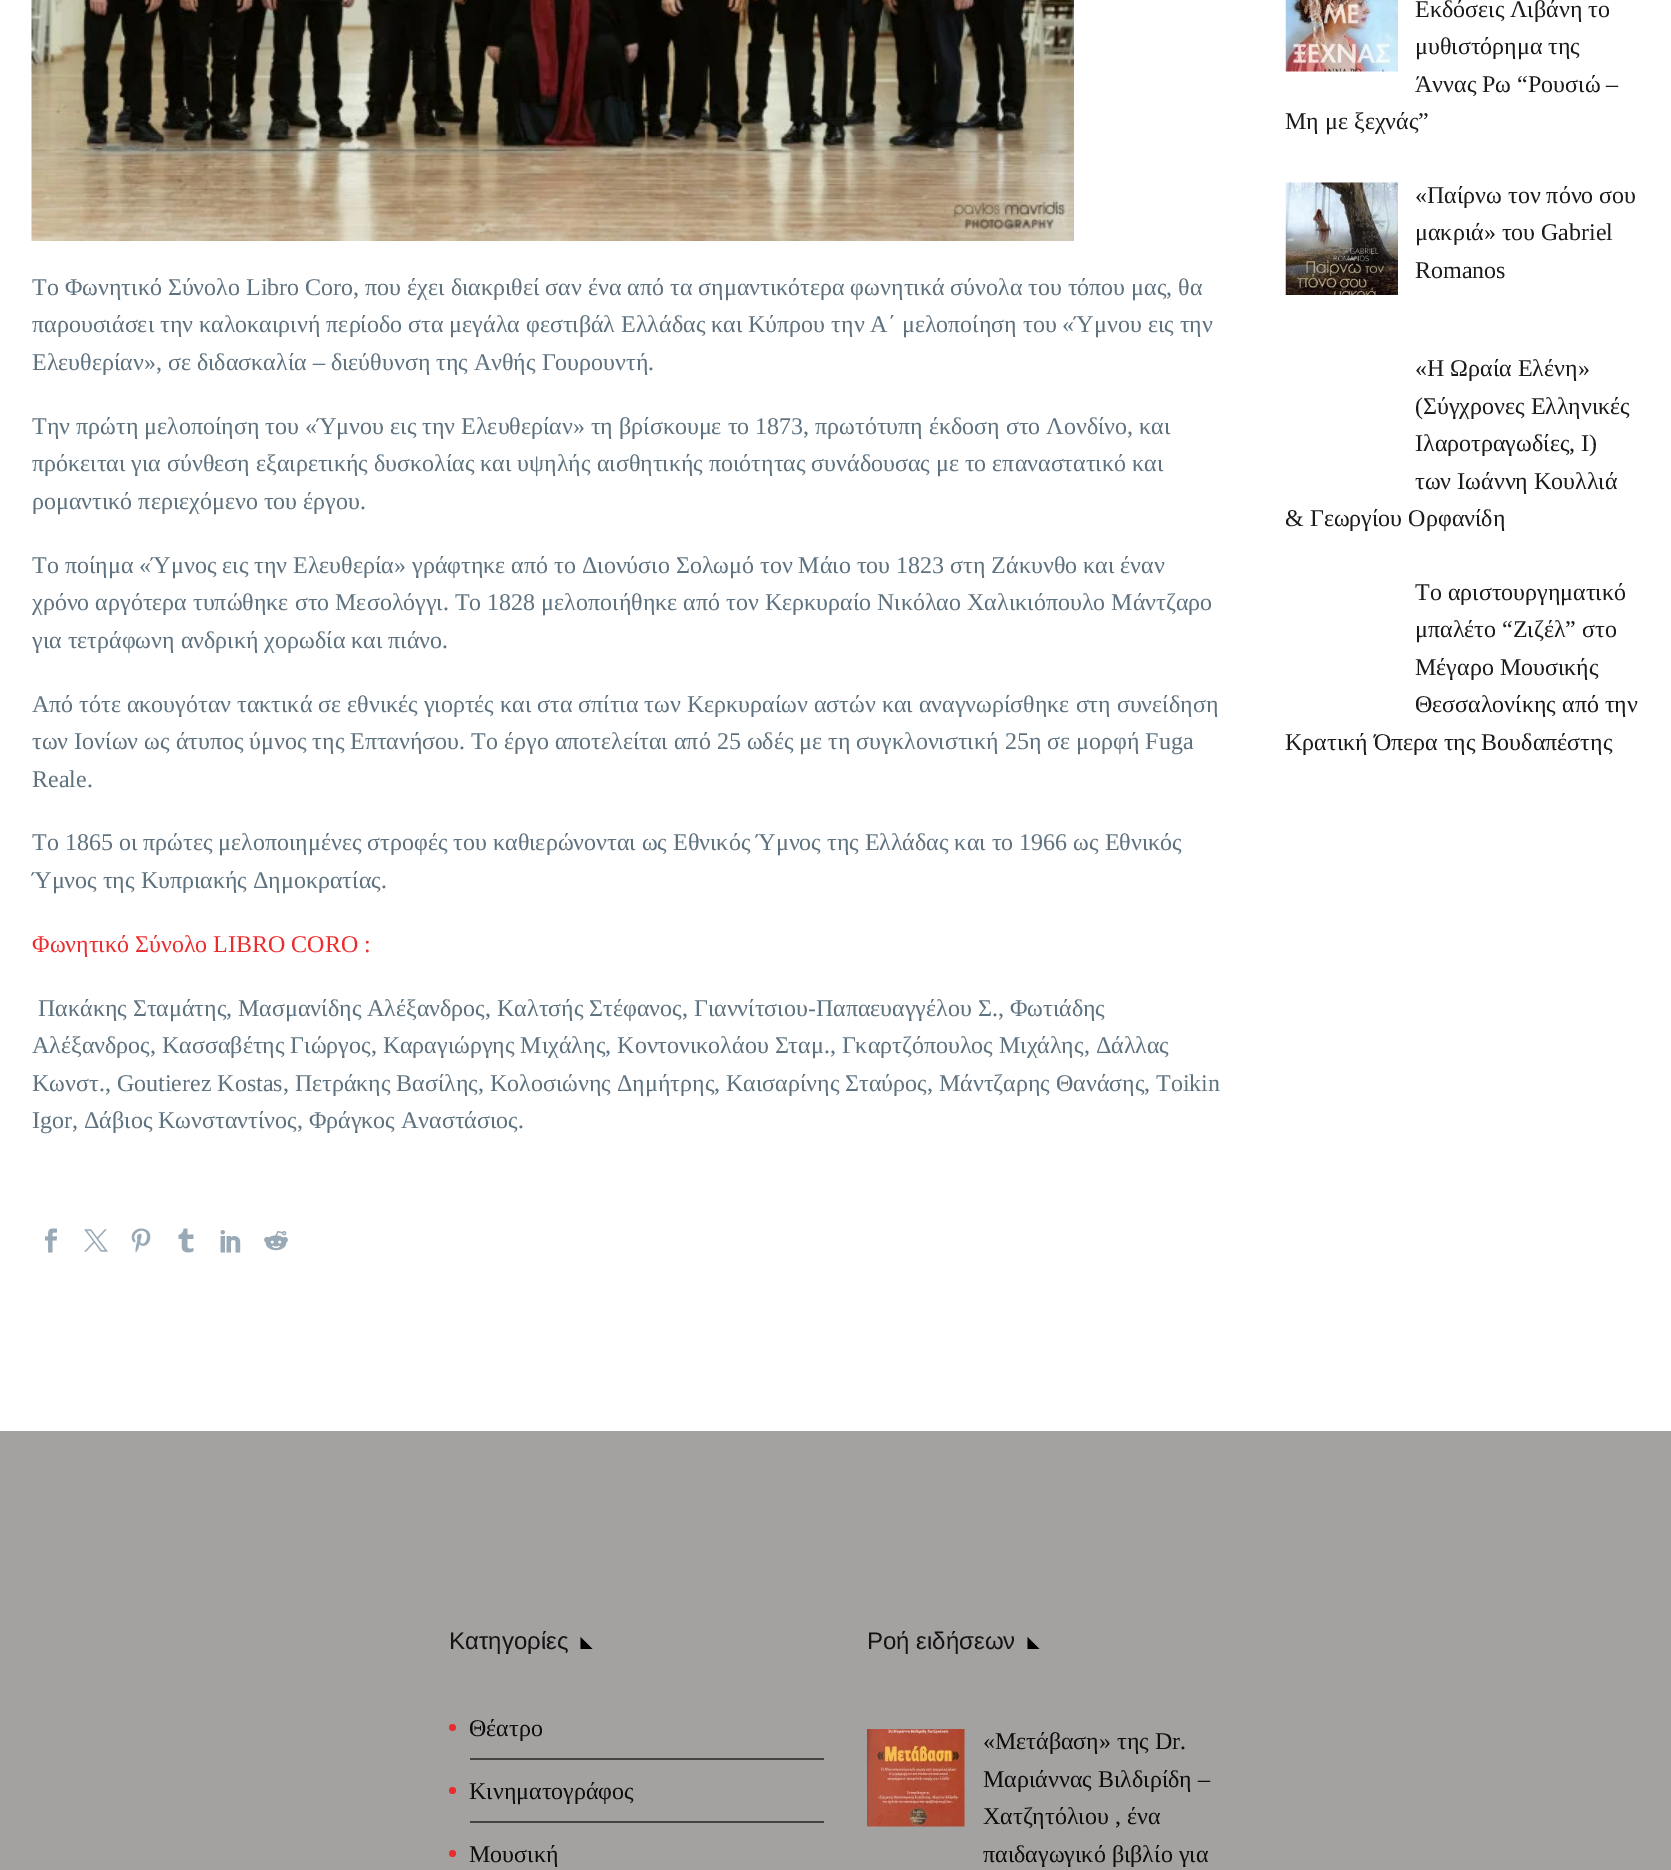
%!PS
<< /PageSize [1671 1870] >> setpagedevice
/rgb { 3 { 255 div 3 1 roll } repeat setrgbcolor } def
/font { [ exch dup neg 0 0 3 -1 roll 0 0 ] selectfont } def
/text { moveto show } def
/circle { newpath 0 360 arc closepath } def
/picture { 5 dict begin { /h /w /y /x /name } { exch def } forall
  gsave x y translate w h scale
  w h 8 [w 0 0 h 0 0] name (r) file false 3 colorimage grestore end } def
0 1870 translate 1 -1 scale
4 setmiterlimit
164 161 161 rgb
0 0 1671 1870 rectfill
255 255 255 rgb
0 0 1671 1431 rectfill
(img_01.rgb) 31 0 1043 241 picture
(img_02.rgb) 45 1228 12 25 picture
(img_03.rgb) 84 1229 24 23 picture
(img_04.rgb) 131 1228 20 25 picture
(img_05.rgb) 178 1228 16 25 picture
(img_06.rgb) 220 1230 21 23 picture
(img_07.rgb) 264 1231 24 20 picture
(img_08.rgb) 1285 0 113 72 picture
(img_09.rgb) 1285 182 113 113 picture
0 0 0 rgb
580.5 1637 moveto 0 12 rlineto 12 0 rlineto closepath fill
68 68 68 rgb
470 1758 354 2 rectfill
236 45 47 rgb
452.5 1727.5 3.5 circle fill
68 68 68 rgb
470 1821 354 2 rectfill
236 45 47 rgb
452.5 1790.5 3.5 circle fill
452.5 1853.5 3.5 circle fill
0 0 0 rgb
1027.5 1637 moveto 0 12 rlineto 12 0 rlineto closepath fill
(img_10.rgb) 867 1729 98 98 picture
/LiberationSerif-Regular 24 font
95 114 127 rgb
(Το Φωνητικό Σύνολο Libro Coro, που έχει διακριθεί σαν ένα από τα σημαντικότερα φωνητικά σύνολα του τόπου μας, θα) 32 295 text
(παρουσιάσει την καλοκαιρινή περίοδο στα μεγάλα φεστιβάλ Ελλάδας και Κύπρου την Α΄ μελοποίηση του «Ύμνου εις την) 32 332 text
(Ελευθερίαν», σε διδασκαλία – διεύθυνση της Ανθής Γουρουντή.) 32 370 text
(Την πρώτη μελοποίηση του «Ύμνου εις την Ελευθερίαν» τη βρίσκουμε το 1873, πρωτότυπη έκδοση στο Λονδίνο, και) 32 434 text
(πρόκειται για σύνθεση εξαιρετικής δυσκολίας και υψηλής αισθητικής ποιότητας συνάδουσας με το επαναστατικό και) 32 471 text
(ρομαντικό περιεχόμενο του έργου.) 32 509 text
(Το ποίημα «Ύμνος εις την Ελευθερία» γράφτηκε από το Διονύσιο Σολωμό τον Μάιο του 1823 στη Ζάκυνθο και έναν) 32 573 text
(χρόνο αργότερα τυπώθηκε στο Μεσολόγγι. Το 1828 μελοποιήθηκε από τον Κερκυραίο Νικόλαο Χαλικιόπουλο Μάντζαρο) 32 610 text
(για τετράφωνη ανδρική χορωδία και πιάνο.) 32 648 text
(Από τότε ακουγόταν τακτικά σε εθνικές γιορτές και στα σπίτια των Κερκυραίων αστών και αναγνωρίσθηκε στη συνείδηση) 32 712 text
(των Ιονίων ως άτυπος ύμνος της Επτανήσου. Το έργο αποτελείται από 25 ωδές με τη συγκλονιστική 25η σε μορφή Fuga) 32 749 text
(Reale.) 32 787 text
(Το 1865 οι πρώτες μελοποιημένες στροφές του καθιερώνονται ως Εθνικός Ύμνος της Ελλάδας και το 1966 ως Εθνικός) 32 850 text
(Ύμνος της Κυπριακής Δημοκρατίας.) 32 888 text
236 45 47 rgb
(Φωνητικό Σύνολο LIBRO CORO :) 32 952 text
95 114 127 rgb
(Πακάκης Σταμάτης, Μασμανίδης Αλέξανδρος, Καλτσής Στέφανος, Γιαννίτσιου-Παπαευαγγέλου Σ., Φωτιάδης) 38 1016 text
(Αλέξανδρος, Κασσαβέτης Γιώργος, Καραγιώργης Μιχάλης, Κοντονικολάου Σταμ., Γκαρτζόπουλος Μιχάλης, Δάλλας) 32 1053 text
(Κωνστ., Goutierez Kostas, Πετράκης Βασίλης, Κολοσιώνης Δημήτρης, Καισαρίνης Σταύρος, Μάντζαρης Θανάσης, Toikin) 32 1091 text
(Igor, Δάβιος Κωνσταντίνος, Φράγκος Αναστάσιος.) 32 1128 text
28 28 28 rgb
(Εκδόσεις Λιβάνη το) 1415 17 text
(μυθιστόρημα της) 1415 54 text
(Άννας Ρω “Ρουσιώ –) 1415 92 text
(Μη με ξεχνάς”) 1285 129 text
(«Παίρνω τον πόνο σου) 1415 203 text
(μακριά» του Gabriel) 1415 240 text
(Romanos) 1415 278 text
(«Η Ωραία Ελένη») 1415 376 text
(\(Σύγχρονες Ελληνικές) 1415 414 text
(Ιλαροτραγωδίες, Ι\)) 1415 451 text
(των Ιωάννη Κουλλιά) 1415 489 text
gsave
1286 350 354 187 rectclip
(& Γεωργίου Ορφανίδη) 1285 526 text
grestore
(To αριστουργηματικό) 1415 600 text
(μπαλέτο “Ζιζέλ” στο) 1415 637 text
(Μέγαρο Μουσικής) 1415 675 text
(Θεσσαλονίκης από την) 1415 712 text
(Κρατική Όπερα της Βουδαπέστης) 1285 750 text
/LiberationSans-Regular 24 font
20 19 19 rgb
(Κατηγορίες) 449 1649 text
/LiberationSerif-Regular 24 font
14 14 14 rgb
(Θέατρο) 469 1736 text
(Κινηματογράφος) 469 1799 text
(Μουσική) 469 1862 text
/LiberationSans-Regular 24 font
20 19 19 rgb
(Ροή ειδήσεων) 867 1649 text
/LiberationSerif-Regular 24 font
14 14 14 rgb
(«Μετάβαση» της Dr.) 983 1749 text
(Μαριάννας Βιλδιρίδη –) 983 1787 text
(Χατζητόλιου , ένα) 983 1824 text
(παιδαγωγικό βιβλίο για) 983 1862 text
showpage
